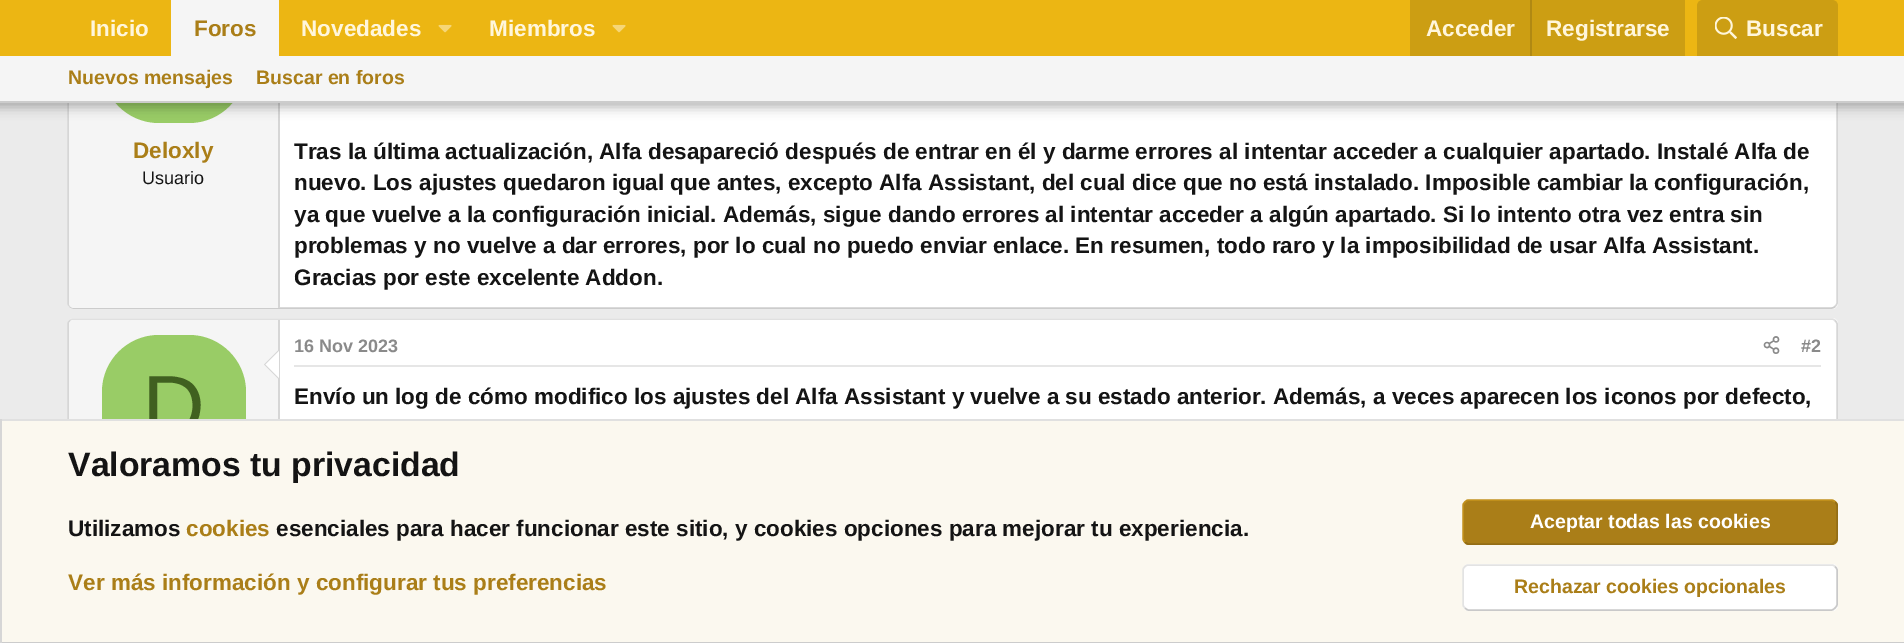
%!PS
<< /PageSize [1904 643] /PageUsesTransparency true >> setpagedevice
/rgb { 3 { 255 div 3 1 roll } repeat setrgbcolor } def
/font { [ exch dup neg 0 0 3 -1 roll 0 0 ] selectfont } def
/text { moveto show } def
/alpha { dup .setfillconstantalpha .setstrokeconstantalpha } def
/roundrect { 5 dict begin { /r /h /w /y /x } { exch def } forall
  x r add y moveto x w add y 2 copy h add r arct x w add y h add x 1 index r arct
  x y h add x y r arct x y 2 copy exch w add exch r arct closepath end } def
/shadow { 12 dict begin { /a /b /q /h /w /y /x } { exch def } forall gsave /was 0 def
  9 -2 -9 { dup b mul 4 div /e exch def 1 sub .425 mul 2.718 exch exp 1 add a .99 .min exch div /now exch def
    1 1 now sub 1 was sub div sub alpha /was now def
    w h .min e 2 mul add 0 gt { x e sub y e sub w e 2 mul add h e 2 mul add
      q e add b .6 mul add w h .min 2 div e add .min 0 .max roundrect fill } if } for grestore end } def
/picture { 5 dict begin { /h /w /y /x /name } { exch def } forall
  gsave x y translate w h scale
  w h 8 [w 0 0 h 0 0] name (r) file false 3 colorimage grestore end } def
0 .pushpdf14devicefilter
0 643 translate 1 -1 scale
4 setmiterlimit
235 235 235 rgb
0 0 1904 643 rectfill
255 255 255 rgb
68 -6 1770 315 6 roundrect fill
214 214 214 rgb
1.5 setlinewidth
1835 -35 moveto 1 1 2 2 2 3.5 rcurveto 0 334.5 rlineto 0 1.5 -1 2.5 -2 3.5 rcurveto stroke
204 204 204 rgb
1835 306.5 moveto -1 1 -2 1.5 -3.5 1.5 rcurveto -1758 0 rlineto -1.5 0 -2.5 -0.5 -3.5 -1.5 rcurveto stroke
214 214 214 rgb
70 306.5 moveto -1 -1 -2 -2 -2 -3.5 rcurveto 0 -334.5 rlineto 0 -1.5 1 -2.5 2 -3.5 rcurveto stroke
245 245 245 rgb
74 -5 moveto 205 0 rlineto 0 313 rlineto -205 0 rlineto -3 0 -5 -2 -5 -5 rcurveto 0 -303 rlineto 0 -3 2 -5 5 -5 rcurveto closepath fill
214 214 214 rgb
278 103 2 205 rectfill
153 204 102 rgb
102 -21 144 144 57 roundrect fill
0 0 0 rgb
-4 -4 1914 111 0 6 0.3 shadow
236 182 19 rgb
0 0 1904 56 rectfill
245 245 245 rgb
171 0 108 56 rectfill
(img_01.rgb) 438 24 14 9 picture
(img_01.rgb) 612 24 14 9 picture
204 158 19 rgb
1410 0 275 56 rectfill
176 137 19 rgb
1530 0 2 56 rectfill
204 158 19 rgb
1703 0 moveto 129 0 rlineto 3.5 0 6 2.5 6 6 rcurveto 0 50 rlineto -141 0 rlineto 0 -50 rlineto 0 -3.5 2.5 -6 6 -6 rcurveto closepath fill
(img_02.rgb) 1715 17 22 22 picture
245 245 245 rgb
0 56 1904 45 rectfill
204 204 204 rgb
0 101 1904 2 rectfill
255 255 255 rgb
68 318 1770 245 6 roundrect fill
224 224 224 rgb
70 320.5 moveto 1 -1 2 -1.5 3.5 -1.5 rcurveto 1758 0 rlineto 1.5 0 2.5 0.5 3.5 1.5 rcurveto stroke
214 214 214 rgb
1835 320.5 moveto 1 1 2 2 2 3.5 rcurveto 0 232.5 rlineto 0 1.5 -1 2.5 -2 3.5 rcurveto stroke
70 560 moveto -1 -1 -2 -2 -2 -3.5 rcurveto 0 -232.5 rlineto 0 -1.5 1 -2.5 2 -3.5 rcurveto stroke
245 245 245 rgb
74 320 moveto 205 0 rlineto 0 241 rlineto -205 0 rlineto -3 0 -5 -2 -5 -5 rcurveto 0 -231 rlineto 0 -3 2 -5 5 -5 rcurveto closepath fill
214 214 214 rgb
278 320 2 99 rectfill
279 349.5 moveto 0 30 rlineto -15 -15 rlineto closepath fill
255 255 255 rgb
279 351 moveto 0 27 rlineto -13.5 -13.5 rlineto closepath fill
153 204 102 rgb
102 335 144 144 57 roundrect fill
230 230 230 rgb
294 365 1527 2 rectfill
(img_03.rgb) 1763 336 17 18 picture
204 204 204 rgb
0 642 1904 1 rectfill
/LiberationSans-Bold 22.5 font
255 246 219 rgb
(Inicio) 90 36 text
170 126 24 rgb
(Foros) 194 36 text
255 246 219 rgb
(Novedades) 301 36 text
(Miembros) 489 36 text
(Acceder) 1426 36 text
(Registrarse) 1546 36 text
(Buscar) 1746 36 text
/LiberationSans-Bold 19.5 font
170 126 24 rgb
(Nuevos mensajes) 68 84 text
(Buscar en foros) 256 84 text
/LiberationSans-Bold 22.5 font
(Deloxly) 133 158 text
/LiberationSans-Regular 18 font
20 20 20 rgb
(Usuario) 142 184 text
/LiberationSans-Bold 22.5 font
(Tras la última actualización, Alfa desapareció después de entrar en él y darme errores al intentar acceder a cualquier apartado. Instalé Alfa de) 294 159 text
(nuevo. Los ajustes quedaron igual que antes, excepto Alfa Assistant, del cual dice que no está instalado. Imposible cambiar la configuración,) 294 190 text
(ya que vuelve a la configuración inicial. Además, sigue dando errores al intentar acceder a algún apartado. Si lo intento otra vez entra sin) 294 222 text
(problemas y no vuelve a dar errores, por lo cual no puedo enviar enlace. En resumen, todo raro y la imposibilidad de usar Alfa Assistant.) 294 253 text
(Gracias por este excelente Addon.) 294 285 text
/LiberationSans-Regular 87 font
64 96 32 rgb
(D) 142 436 text
/LiberationSans-Bold 18 font
138 138 138 rgb
(16 Nov 2023) 294 352 text
(#2) 1801 352 text
/LiberationSans-Bold 22.5 font
20 20 20 rgb
(Envío un log de cómo modifico los ajustes del Alfa Assistant y vuelve a su estado anterior. Además, a veces aparecen los iconos por defecto,) 294 404 text
251 248 239 rgb
2 421 1902 221 rectfill
224 224 224 rgb
0 419 1904 2 rectfill
214 214 214 rgb
0 419 2 224 rectfill
/LiberationSans-Bold 33.75 font
20 20 20 rgb
(Valoramos tu privacidad) 68 476 text
/LiberationSans-Bold 22.5 font
(Utilizamos) 68 536 text
170 126 24 rgb
(cookies) 186 536 text
20 20 20 rgb
(esenciales para hacer funcionar este sitio, y cookies opciones para mejorar tu experiencia.) 276 536 text
170 126 24 rgb
(Ver más información y configurar tus preferencias) 68 590 text
1463 500 375 45 6 roundrect fill
147 109 21 rgb
1835 502 moveto 1 1 2 2 2 3.5 rcurveto 0 33 rlineto 0 1.5 -1 2.5 -2 3.5 rcurveto -1 1 -2 2 -3.5 2 rcurveto -363 0 rlineto -1.5 0 -2.5 -1 -3.5 -2 rcurveto stroke
192 143 27 rgb
1465 542 moveto -1 -1 -2 -2 -2 -3.5 rcurveto 0 -33 rlineto 0 -1.5 1 -2.5 2 -3.5 rcurveto 1 -1 2 -2 3.5 -2 rcurveto 363 0 rlineto 1.5 0 2.5 1 3.5 2 rcurveto stroke
/LiberationSans-Bold 19.5 font
255 255 255 rgb
(Aceptar todas las cookies) 1530 528 text
1463 564 375 47 6 roundrect fill
201 201 201 rgb
1835 566.5 moveto 1 1 2 2 2 3.5 rcurveto 0 34.5 rlineto 0 1.5 -1 2.5 -2 3.5 rcurveto -1 1 -2 2 -3.5 2 rcurveto -363 0 rlineto -1.5 0 -2.5 -1 -3.5 -2 rcurveto stroke
227 227 227 rgb
1465 608 moveto -1 -1 -2 -2 -2 -3.5 rcurveto 0 -34.5 rlineto 0 -1.5 1 -2.5 2 -3.5 rcurveto 1 -1 2 -1.5 3.5 -1.5 rcurveto 363 0 rlineto 1.5 0 2.5 0.5 3.5 1.5 rcurveto stroke
170 126 24 rgb
(Rechazar cookies opcionales) 1514 593 text
.poppdf14devicefilter showpage
